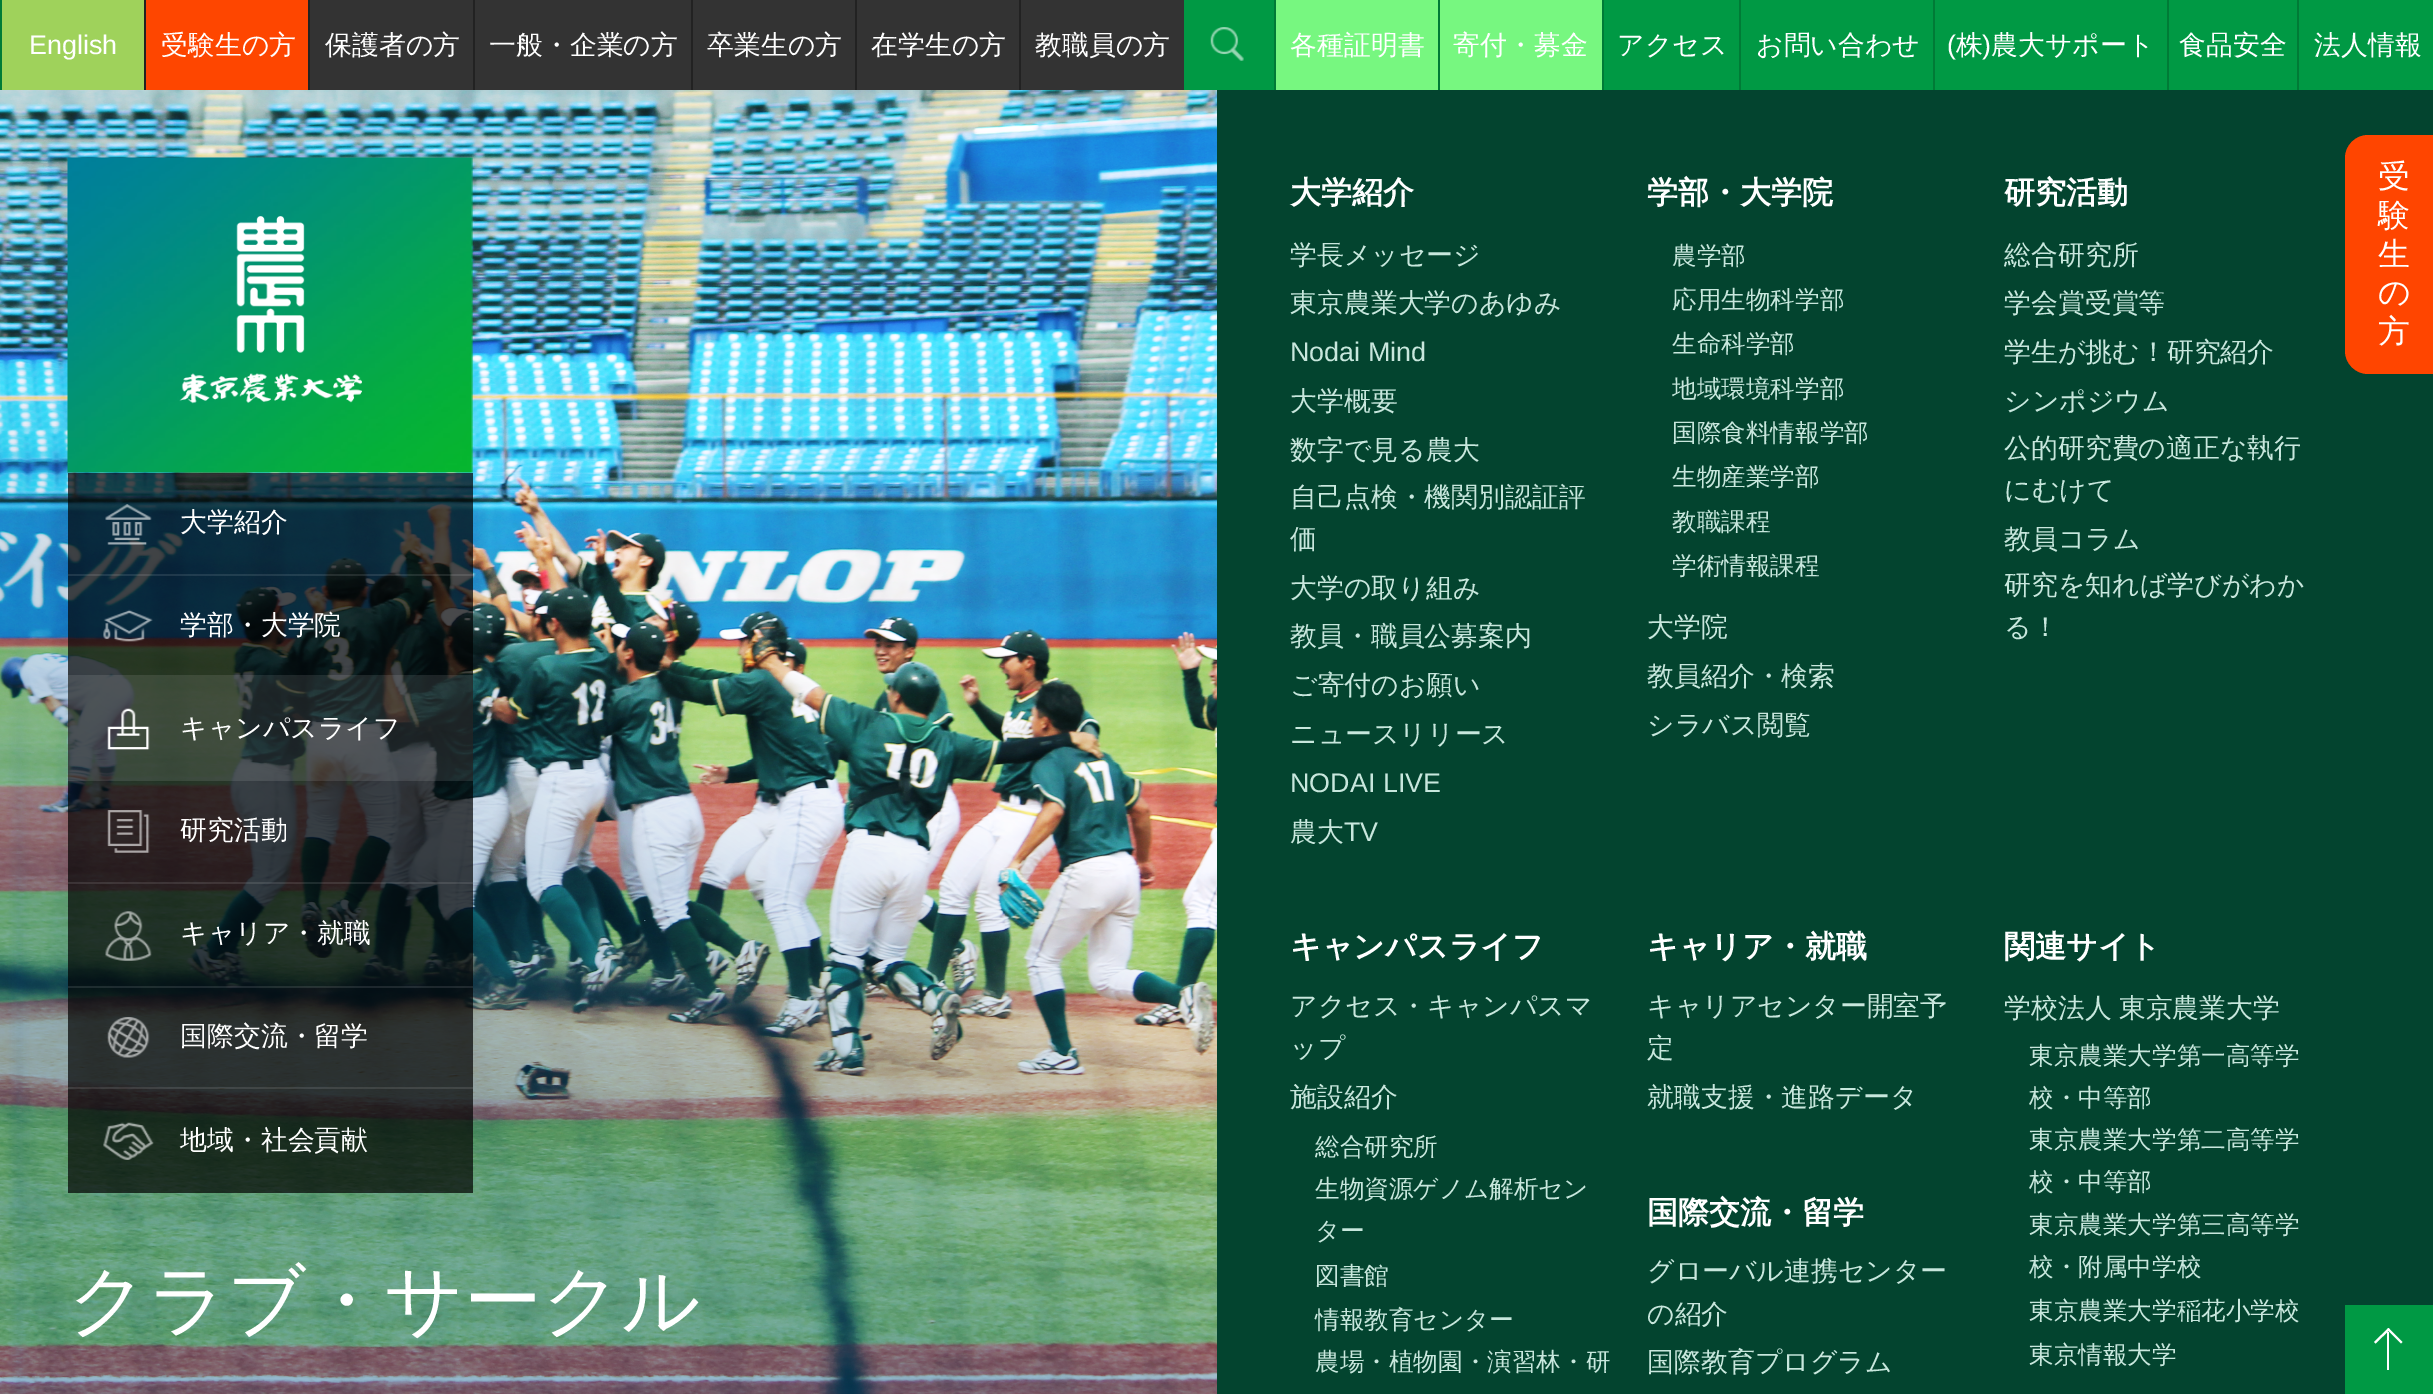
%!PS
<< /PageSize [2433 1394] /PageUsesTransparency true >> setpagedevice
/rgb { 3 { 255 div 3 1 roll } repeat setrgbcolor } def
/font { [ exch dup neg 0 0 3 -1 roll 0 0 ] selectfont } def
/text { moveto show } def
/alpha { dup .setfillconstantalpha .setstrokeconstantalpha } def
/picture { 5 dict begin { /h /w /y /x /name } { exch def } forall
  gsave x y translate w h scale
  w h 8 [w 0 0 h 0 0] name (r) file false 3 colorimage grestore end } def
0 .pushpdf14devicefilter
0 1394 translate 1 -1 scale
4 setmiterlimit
255 255 255 rgb
0 0 2433 1394 rectfill
51 51 51 rgb
310 0 874 90 rectfill
159 210 91 rgb
2 0 142 90 rectfill
0 123 54 rgb
0 0 2 90 rectfill
0 153 68 rgb
1184 0 90 90 rectfill
(img_01.rgb) 1210 27 34 34 picture
119 247 128 rgb
1276 0 162 90 rectfill
0 123 54 rgb
1274 0 2 90 rectfill
119 247 128 rgb
1440 0 162 90 rectfill
0 123 54 rgb
1438 0 2 90 rectfill
0 153 68 rgb
1604 0 135 90 rectfill
0 123 54 rgb
1602 0 2 90 rectfill
0 153 68 rgb
1741 0 192 90 rectfill
0 123 54 rgb
1739 0 2 90 rectfill
0 153 68 rgb
1935 0 232 90 rectfill
0 123 54 rgb
1933 0 2 90 rectfill
0 153 68 rgb
2169 0 128 90 rectfill
0 123 54 rgb
2167 0 2 90 rectfill
0 153 68 rgb
2299 0 134 90 rectfill
0 123 54 rgb
2297 0 2 90 rectfill
254 70 0 rgb
146 0 162 90 rectfill
34 34 34 rgb
144 0 2 90 rectfill
308 0 2 90 rectfill
473 0 2 90 rectfill
691 0 2 90 rectfill
855 0 2 90 rectfill
1019 0 2 90 rectfill
(img_11.rgb) 0 90 1217 1304 picture
(img_12.rgb) 0 361 1217 1033 picture
0.7 alpha
0 0 0 rgb
68 473 405 720 rectfill
0.1 alpha
255 255 255 rgb
68 574 405 2 rectfill
1 alpha
(img_02.rgb) 105 504 47 41 picture
0.1 alpha
68 675 405 2 rectfill
1 alpha
(img_03.rgb) 103 609 50 33 picture
0.1 alpha
68 677 405 104 rectfill
1 alpha
(img_04.rgb) 107 708 43 42 picture
0.1 alpha
68 882 405 2 rectfill
1 alpha
(img_05.rgb) 107 810 43 43 picture
0.1 alpha
68 986 405 2 rectfill
1 alpha
(img_06.rgb) 105 911 47 50 picture
0.1 alpha
68 1087 405 2 rectfill
1 alpha
(img_07.rgb) 107 1017 43 41 picture
(img_08.rgb) 103 1122 51 38 picture
(img_09.rgb) 67 157 406 316 picture
(img_10.rgb) 179 216 183 188 picture
3 68 47 rgb
1217 90 1216 1304 rectfill
255 69 0 rgb
2368 135 moveto 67 0 rlineto 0 239 rlineto -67 0 rlineto -12.5 0 -23 -10.5 -23 -23 rcurveto 0 -193 rlineto 0 -12.5 10.5 -23 23 -23 rcurveto closepath fill
0 153 68 rgb
2345 1305 88 89 rectfill
255 255 255 rgb
2387 1332 2 38 rectfill
2388.5 1328 moveto 14 14 rlineto -1.5 1.5 rlineto -14 -14 rlineto closepath fill
2388.5 1328 moveto 1.5 1.5 rlineto -14.5 14 rlineto -1.5 -1.5 rlineto closepath fill
/LiberationSans-Regular 26.9 font
(English) 29 54 text
/WenQuanYiZenHei-Medium 26.9 font
(各種証明書) 1290 54 text
(寄付・募金) 1453 54 text
(アクセス) 1617 54 text
(お問い合わせ) 1756 54 text
/LiberationSans-Regular 26.9 font
(\() 1947 54 text
/WenQuanYiZenHei-Medium 26.9 font
(株) 1956 54 text
/LiberationSans-Regular 26.9 font
(\)) 1982 54 text
/WenQuanYiZenHei-Medium 26.9 font
(農大サポート) 1991 54 text
(食品安全) 2179 54 text
(法人情報) 2314 54 text
(受験生の方) 161 54 text
(保護者の方) 325 54 text
(一般・企業の方) 489 54 text
(卒業生の方) 707 54 text
(在学生の方) 871 54 text
(教職員の方) 1035 54 text
(大学紹介) 180 531 text
(学部・大学院) 180 634 text
(キャンパスライフ) 180 737 text
(研究活動) 180 839 text
(キャリア・就職) 180 942 text
(国際交流・留学) 180 1045 text
(地域・社会貢献) 180 1149 text
/WenQuanYiZenHei-Bold 31 font
(大学紹介) 1290 203 text
/WenQuanYiZenHei-Medium 26.9 font
200 231 221 rgb
(学長メッセージ) 1290 264 text
(東京農業大学のあゆみ) 1290 312 text
/LiberationSans-Regular 26.9 font
(Nodai Mind) 1290 361 text
/WenQuanYiZenHei-Medium 26.9 font
(大学概要) 1290 410 text
(数字で見る農大) 1290 459 text
(自己点検・機関別認証評) 1290 506 text
(価) 1290 548 text
(大学の取り組み) 1290 597 text
(教員・職員公募案内) 1290 645 text
(ご寄付のお願い) 1290 694 text
(ニュースリリース) 1290 743 text
/LiberationSans-Regular 26.9 font
(NODAI LIVE) 1290 792 text
/WenQuanYiZenHei-Medium 26.9 font
(農大) 1290 841 text
/LiberationSans-Regular 26.9 font
(TV) 1344 841 text
/WenQuanYiZenHei-Bold 31 font
255 255 255 rgb
(学部・大学院) 1647 203 text
/WenQuanYiZenHei-Medium 24.6 font
200 231 221 rgb
(農学部) 1672 264 text
(応用生物科学部) 1672 308 text
(生命科学部) 1672 352 text
(地域環境科学部) 1672 397 text
(国際食料情報学部) 1672 441 text
(生物産業学部) 1672 485 text
(教職課程) 1672 530 text
(学術情報課程) 1672 574 text
/WenQuanYiZenHei-Medium 26.9 font
(大学院) 1647 636 text
(教員紹介・検索) 1647 685 text
(シラバス閲覧) 1647 734 text
/WenQuanYiZenHei-Bold 31 font
255 255 255 rgb
(研究活動) 2004 203 text
/WenQuanYiZenHei-Medium 26.9 font
200 231 221 rgb
(総合研究所) 2004 264 text
(学会賞受賞等) 2004 312 text
(学生が挑む！研究紹介) 2004 361 text
(シンポジウム) 2004 410 text
(公的研究費の適正な執行) 2004 457 text
(にむけて) 2004 499 text
(教員コラム) 2004 548 text
(研究を知れば学びがわか) 2004 594 text
(る！) 2004 636 text
/WenQuanYiZenHei-Bold 31 font
255 255 255 rgb
(キャンパスライフ) 1290 957 text
/WenQuanYiZenHei-Medium 26.9 font
200 231 221 rgb
(アクセス・キャンパスマ) 1290 1015 text
(ップ) 1290 1057 text
(施設紹介) 1290 1106 text
/WenQuanYiZenHei-Medium 24.6 font
(総合研究所) 1315 1155 text
(生物資源ゲノム解析セン) 1315 1197 text
(ター) 1315 1239 text
(図書館) 1315 1284 text
(情報教育センター) 1315 1328 text
(農場・植物園・演習林・研) 1315 1370 text
/WenQuanYiZenHei-Bold 31 font
255 255 255 rgb
(キャリア・就職) 1647 957 text
/WenQuanYiZenHei-Medium 26.9 font
200 231 221 rgb
(キャリアセンター開室予) 1647 1015 text
(定) 1647 1057 text
(就職支援・進路データ) 1647 1106 text
/WenQuanYiZenHei-Bold 31 font
255 255 255 rgb
(国際交流・留学) 1647 1223 text
/WenQuanYiZenHei-Medium 26.9 font
200 231 221 rgb
(グローバル連携センター) 1647 1280 text
(の紹介) 1647 1323 text
(国際教育プログラム) 1647 1371 text
/WenQuanYiZenHei-Bold 31 font
255 255 255 rgb
(関連サイト) 2004 957 text
/WenQuanYiZenHei-Medium 26.9 font
200 231 221 rgb
2004 1017 moveto -1 0 32 (学校法人 東京農業大学) widthshow
/WenQuanYiZenHei-Medium 24.6 font
(東京農業大学第一高等学) 2029 1064 text
(校・中等部) 2029 1106 text
(東京農業大学第二高等学) 2029 1148 text
(校・中等部) 2029 1190 text
(東京農業大学第三高等学) 2029 1233 text
(校・附属中学校) 2029 1275 text
(東京農業大学稲花小学校) 2029 1319 text
(東京情報大学) 2029 1363 text
/WenQuanYiZenHei-Medium 77.75 font
255 255 255 rgb
(クラブ・サークル) 68 1327 text
/WenQuanYiZenHei-Medium 32 font
(受) 2378 187 text
(験) 2378 226 text
(生) 2378 265 text
(の) 2378 303 text
(方) 2378 342 text
.poppdf14devicefilter showpage
